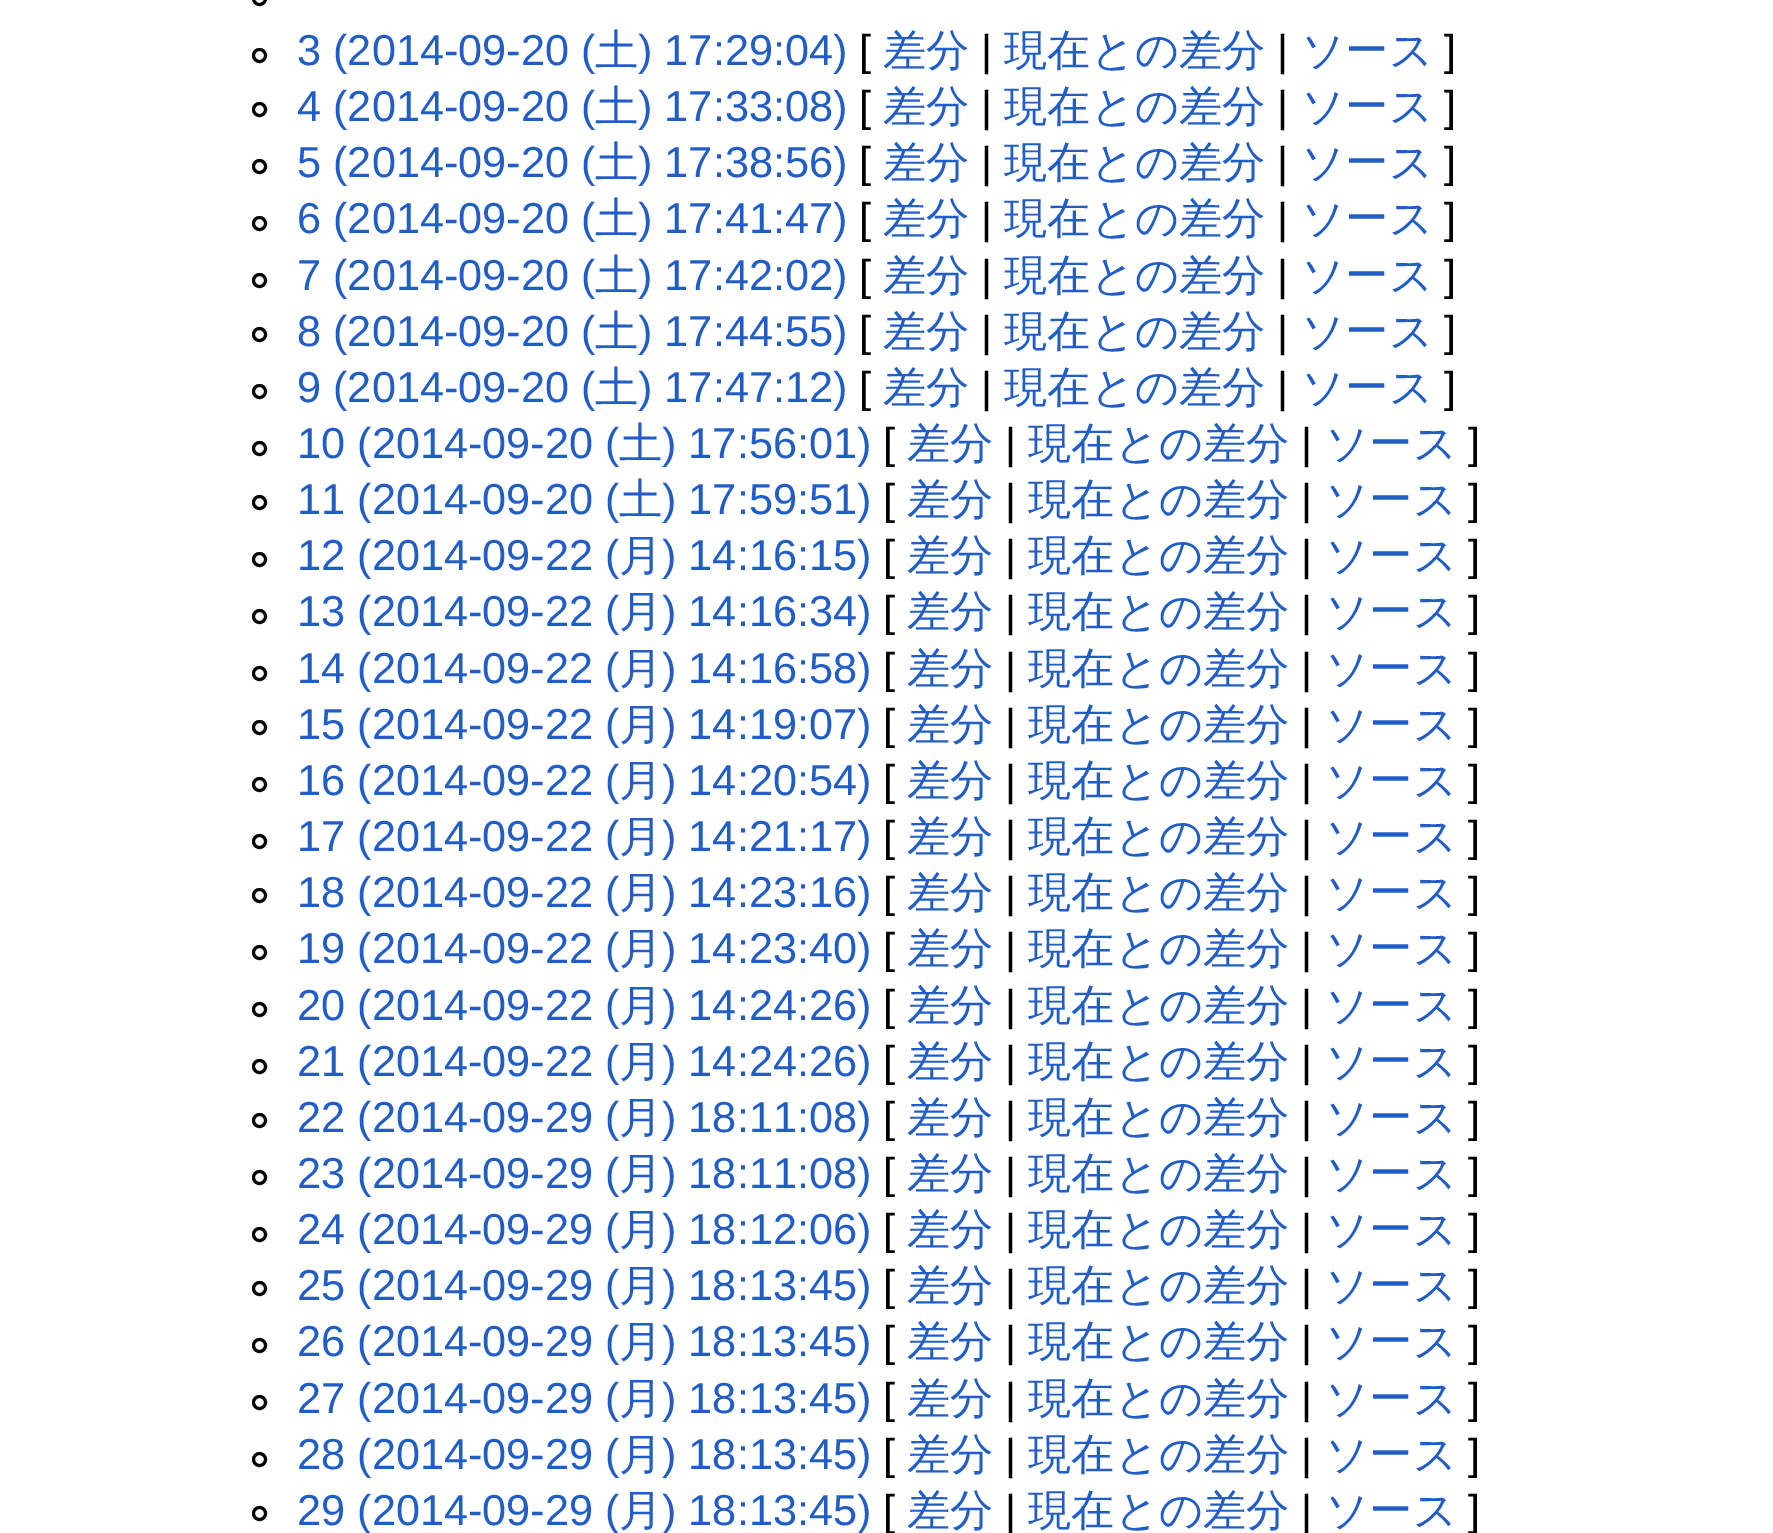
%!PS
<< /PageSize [1773 1533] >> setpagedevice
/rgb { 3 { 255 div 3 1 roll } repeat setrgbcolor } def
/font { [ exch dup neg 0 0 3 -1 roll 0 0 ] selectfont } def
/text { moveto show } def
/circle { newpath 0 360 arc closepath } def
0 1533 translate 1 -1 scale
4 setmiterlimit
255 255 255 rgb
0 0 1773 1533 rectfill
0 0 0 rgb
3 setlinewidth
259.5 -1.5 6 circle stroke
259.5 55.5 6 circle stroke
259.5 109.5 6 circle stroke
259.5 166.5 6 circle stroke
259.5 223.5 6 circle stroke
259.5 280.5 6 circle stroke
259.5 334.5 6 circle stroke
259.5 391.5 6 circle stroke
259.5 448.5 6 circle stroke
259.5 502.5 6 circle stroke
259.5 559.5 6 circle stroke
259.5 616.5 6 circle stroke
259.5 673.5 6 circle stroke
259.5 727.5 6 circle stroke
259.5 784.5 6 circle stroke
259.5 841.5 6 circle stroke
259.5 895.5 6 circle stroke
259.5 952.5 6 circle stroke
259.5 1009.5 6 circle stroke
259.5 1066.5 6 circle stroke
259.5 1120.5 6 circle stroke
259.5 1177.5 6 circle stroke
259.5 1234.5 6 circle stroke
259.5 1288.5 6 circle stroke
259.5 1345.5 6 circle stroke
259.5 1402.5 6 circle stroke
259.5 1459.5 6 circle stroke
259.5 1513.5 6 circle stroke
/LiberationSans-Regular 43.25 font
33 93 198 rgb
(3 \(2014-09-20 \() 297 65 text
/WenQuanYiZenHei-Medium 43.25 font
(土) 595 65 text
/LiberationSans-Regular 43.25 font
(\) 17:29:04\)) 638 65 text
0 0 0 rgb
([) 859 65 text
/WenQuanYiZenHei-Medium 43.25 font
33 93 198 rgb
(差分) 883 65 text
/LiberationSans-Regular 43.25 font
0 0 0 rgb
(|) 981 65 text
/WenQuanYiZenHei-Medium 43.25 font
33 93 198 rgb
(現在との差分) 1004 65 text
/LiberationSans-Regular 43.25 font
0 0 0 rgb
(|) 1277 65 text
/WenQuanYiZenHei-Medium 43.25 font
33 93 198 rgb
(ソース) 1301 65 text
/LiberationSans-Regular 43.25 font
0 0 0 rgb
(]) 1444 65 text
33 93 198 rgb
(4 \(2014-09-20 \() 297 121 text
/WenQuanYiZenHei-Medium 43.25 font
(土) 595 121 text
/LiberationSans-Regular 43.25 font
(\) 17:33:08\)) 638 121 text
0 0 0 rgb
([) 859 121 text
/WenQuanYiZenHei-Medium 43.25 font
33 93 198 rgb
(差分) 883 121 text
/LiberationSans-Regular 43.25 font
0 0 0 rgb
(|) 981 121 text
/WenQuanYiZenHei-Medium 43.25 font
33 93 198 rgb
(現在との差分) 1004 121 text
/LiberationSans-Regular 43.25 font
0 0 0 rgb
(|) 1277 121 text
/WenQuanYiZenHei-Medium 43.25 font
33 93 198 rgb
(ソース) 1301 121 text
/LiberationSans-Regular 43.25 font
0 0 0 rgb
(]) 1444 121 text
33 93 198 rgb
(5 \(2014-09-20 \() 297 177 text
/WenQuanYiZenHei-Medium 43.25 font
(土) 595 177 text
/LiberationSans-Regular 43.25 font
(\) 17:38:56\)) 638 177 text
0 0 0 rgb
([) 859 177 text
/WenQuanYiZenHei-Medium 43.25 font
33 93 198 rgb
(差分) 883 177 text
/LiberationSans-Regular 43.25 font
0 0 0 rgb
(|) 981 177 text
/WenQuanYiZenHei-Medium 43.25 font
33 93 198 rgb
(現在との差分) 1004 177 text
/LiberationSans-Regular 43.25 font
0 0 0 rgb
(|) 1277 177 text
/WenQuanYiZenHei-Medium 43.25 font
33 93 198 rgb
(ソース) 1301 177 text
/LiberationSans-Regular 43.25 font
0 0 0 rgb
(]) 1444 177 text
33 93 198 rgb
(6 \(2014-09-20 \() 297 233 text
/WenQuanYiZenHei-Medium 43.25 font
(土) 595 233 text
/LiberationSans-Regular 43.25 font
(\) 17:41:47\)) 638 233 text
0 0 0 rgb
([) 859 233 text
/WenQuanYiZenHei-Medium 43.25 font
33 93 198 rgb
(差分) 883 233 text
/LiberationSans-Regular 43.25 font
0 0 0 rgb
(|) 981 233 text
/WenQuanYiZenHei-Medium 43.25 font
33 93 198 rgb
(現在との差分) 1004 233 text
/LiberationSans-Regular 43.25 font
0 0 0 rgb
(|) 1277 233 text
/WenQuanYiZenHei-Medium 43.25 font
33 93 198 rgb
(ソース) 1301 233 text
/LiberationSans-Regular 43.25 font
0 0 0 rgb
(]) 1444 233 text
33 93 198 rgb
(7 \(2014-09-20 \() 297 290 text
/WenQuanYiZenHei-Medium 43.25 font
(土) 595 290 text
/LiberationSans-Regular 43.25 font
(\) 17:42:02\)) 638 290 text
0 0 0 rgb
([) 859 290 text
/WenQuanYiZenHei-Medium 43.25 font
33 93 198 rgb
(差分) 883 290 text
/LiberationSans-Regular 43.25 font
0 0 0 rgb
(|) 981 290 text
/WenQuanYiZenHei-Medium 43.25 font
33 93 198 rgb
(現在との差分) 1004 290 text
/LiberationSans-Regular 43.25 font
0 0 0 rgb
(|) 1277 290 text
/WenQuanYiZenHei-Medium 43.25 font
33 93 198 rgb
(ソース) 1301 290 text
/LiberationSans-Regular 43.25 font
0 0 0 rgb
(]) 1444 290 text
33 93 198 rgb
(8 \(2014-09-20 \() 297 346 text
/WenQuanYiZenHei-Medium 43.25 font
(土) 595 346 text
/LiberationSans-Regular 43.25 font
(\) 17:44:55\)) 638 346 text
0 0 0 rgb
([) 859 346 text
/WenQuanYiZenHei-Medium 43.25 font
33 93 198 rgb
(差分) 883 346 text
/LiberationSans-Regular 43.25 font
0 0 0 rgb
(|) 981 346 text
/WenQuanYiZenHei-Medium 43.25 font
33 93 198 rgb
(現在との差分) 1004 346 text
/LiberationSans-Regular 43.25 font
0 0 0 rgb
(|) 1277 346 text
/WenQuanYiZenHei-Medium 43.25 font
33 93 198 rgb
(ソース) 1301 346 text
/LiberationSans-Regular 43.25 font
0 0 0 rgb
(]) 1444 346 text
33 93 198 rgb
(9 \(2014-09-20 \() 297 402 text
/WenQuanYiZenHei-Medium 43.25 font
(土) 595 402 text
/LiberationSans-Regular 43.25 font
(\) 17:47:12\)) 638 402 text
0 0 0 rgb
([) 859 402 text
/WenQuanYiZenHei-Medium 43.25 font
33 93 198 rgb
(差分) 883 402 text
/LiberationSans-Regular 43.25 font
0 0 0 rgb
(|) 981 402 text
/WenQuanYiZenHei-Medium 43.25 font
33 93 198 rgb
(現在との差分) 1004 402 text
/LiberationSans-Regular 43.25 font
0 0 0 rgb
(|) 1277 402 text
/WenQuanYiZenHei-Medium 43.25 font
33 93 198 rgb
(ソース) 1301 402 text
/LiberationSans-Regular 43.25 font
0 0 0 rgb
(]) 1444 402 text
33 93 198 rgb
(10 \(2014-09-20 \() 297 458 text
/WenQuanYiZenHei-Medium 43.25 font
(土) 619 458 text
/LiberationSans-Regular 43.25 font
(\) 17:56:01\)) 662 458 text
0 0 0 rgb
([) 883 458 text
/WenQuanYiZenHei-Medium 43.25 font
33 93 198 rgb
(差分) 907 458 text
/LiberationSans-Regular 43.25 font
0 0 0 rgb
(|) 1005 458 text
/WenQuanYiZenHei-Medium 43.25 font
33 93 198 rgb
(現在との差分) 1028 458 text
/LiberationSans-Regular 43.25 font
0 0 0 rgb
(|) 1301 458 text
/WenQuanYiZenHei-Medium 43.25 font
33 93 198 rgb
(ソース) 1325 458 text
/LiberationSans-Regular 43.25 font
0 0 0 rgb
(]) 1468 458 text
33 93 198 rgb
(11 \(2014-09-20 \() 297 514 text
/WenQuanYiZenHei-Medium 43.25 font
(土) 619 514 text
/LiberationSans-Regular 43.25 font
(\) 17:59:51\)) 662 514 text
0 0 0 rgb
([) 883 514 text
/WenQuanYiZenHei-Medium 43.25 font
33 93 198 rgb
(差分) 907 514 text
/LiberationSans-Regular 43.25 font
0 0 0 rgb
(|) 1005 514 text
/WenQuanYiZenHei-Medium 43.25 font
33 93 198 rgb
(現在との差分) 1028 514 text
/LiberationSans-Regular 43.25 font
0 0 0 rgb
(|) 1301 514 text
/WenQuanYiZenHei-Medium 43.25 font
33 93 198 rgb
(ソース) 1325 514 text
/LiberationSans-Regular 43.25 font
0 0 0 rgb
(]) 1468 514 text
33 93 198 rgb
(12 \(2014-09-22 \() 297 570 text
/WenQuanYiZenHei-Medium 43.25 font
(月) 619 570 text
/LiberationSans-Regular 43.25 font
(\) 14:16:15\)) 662 570 text
0 0 0 rgb
([) 883 570 text
/WenQuanYiZenHei-Medium 43.25 font
33 93 198 rgb
(差分) 907 570 text
/LiberationSans-Regular 43.25 font
0 0 0 rgb
(|) 1005 570 text
/WenQuanYiZenHei-Medium 43.25 font
33 93 198 rgb
(現在との差分) 1028 570 text
/LiberationSans-Regular 43.25 font
0 0 0 rgb
(|) 1301 570 text
/WenQuanYiZenHei-Medium 43.25 font
33 93 198 rgb
(ソース) 1325 570 text
/LiberationSans-Regular 43.25 font
0 0 0 rgb
(]) 1468 570 text
33 93 198 rgb
(13 \(2014-09-22 \() 297 626 text
/WenQuanYiZenHei-Medium 43.25 font
(月) 619 626 text
/LiberationSans-Regular 43.25 font
(\) 14:16:34\)) 662 626 text
0 0 0 rgb
([) 883 626 text
/WenQuanYiZenHei-Medium 43.25 font
33 93 198 rgb
(差分) 907 626 text
/LiberationSans-Regular 43.25 font
0 0 0 rgb
(|) 1005 626 text
/WenQuanYiZenHei-Medium 43.25 font
33 93 198 rgb
(現在との差分) 1028 626 text
/LiberationSans-Regular 43.25 font
0 0 0 rgb
(|) 1301 626 text
/WenQuanYiZenHei-Medium 43.25 font
33 93 198 rgb
(ソース) 1325 626 text
/LiberationSans-Regular 43.25 font
0 0 0 rgb
(]) 1468 626 text
33 93 198 rgb
(14 \(2014-09-22 \() 297 683 text
/WenQuanYiZenHei-Medium 43.25 font
(月) 619 683 text
/LiberationSans-Regular 43.25 font
(\) 14:16:58\)) 662 683 text
0 0 0 rgb
([) 883 683 text
/WenQuanYiZenHei-Medium 43.25 font
33 93 198 rgb
(差分) 907 683 text
/LiberationSans-Regular 43.25 font
0 0 0 rgb
(|) 1005 683 text
/WenQuanYiZenHei-Medium 43.25 font
33 93 198 rgb
(現在との差分) 1028 683 text
/LiberationSans-Regular 43.25 font
0 0 0 rgb
(|) 1301 683 text
/WenQuanYiZenHei-Medium 43.25 font
33 93 198 rgb
(ソース) 1325 683 text
/LiberationSans-Regular 43.25 font
0 0 0 rgb
(]) 1468 683 text
33 93 198 rgb
(15 \(2014-09-22 \() 297 739 text
/WenQuanYiZenHei-Medium 43.25 font
(月) 619 739 text
/LiberationSans-Regular 43.25 font
(\) 14:19:07\)) 662 739 text
0 0 0 rgb
([) 883 739 text
/WenQuanYiZenHei-Medium 43.25 font
33 93 198 rgb
(差分) 907 739 text
/LiberationSans-Regular 43.25 font
0 0 0 rgb
(|) 1005 739 text
/WenQuanYiZenHei-Medium 43.25 font
33 93 198 rgb
(現在との差分) 1028 739 text
/LiberationSans-Regular 43.25 font
0 0 0 rgb
(|) 1301 739 text
/WenQuanYiZenHei-Medium 43.25 font
33 93 198 rgb
(ソース) 1325 739 text
/LiberationSans-Regular 43.25 font
0 0 0 rgb
(]) 1468 739 text
33 93 198 rgb
(16 \(2014-09-22 \() 297 795 text
/WenQuanYiZenHei-Medium 43.25 font
(月) 619 795 text
/LiberationSans-Regular 43.25 font
(\) 14:20:54\)) 662 795 text
0 0 0 rgb
([) 883 795 text
/WenQuanYiZenHei-Medium 43.25 font
33 93 198 rgb
(差分) 907 795 text
/LiberationSans-Regular 43.25 font
0 0 0 rgb
(|) 1005 795 text
/WenQuanYiZenHei-Medium 43.25 font
33 93 198 rgb
(現在との差分) 1028 795 text
/LiberationSans-Regular 43.25 font
0 0 0 rgb
(|) 1301 795 text
/WenQuanYiZenHei-Medium 43.25 font
33 93 198 rgb
(ソース) 1325 795 text
/LiberationSans-Regular 43.25 font
0 0 0 rgb
(]) 1468 795 text
33 93 198 rgb
(17 \(2014-09-22 \() 297 851 text
/WenQuanYiZenHei-Medium 43.25 font
(月) 619 851 text
/LiberationSans-Regular 43.25 font
(\) 14:21:17\)) 662 851 text
0 0 0 rgb
([) 883 851 text
/WenQuanYiZenHei-Medium 43.25 font
33 93 198 rgb
(差分) 907 851 text
/LiberationSans-Regular 43.25 font
0 0 0 rgb
(|) 1005 851 text
/WenQuanYiZenHei-Medium 43.25 font
33 93 198 rgb
(現在との差分) 1028 851 text
/LiberationSans-Regular 43.25 font
0 0 0 rgb
(|) 1301 851 text
/WenQuanYiZenHei-Medium 43.25 font
33 93 198 rgb
(ソース) 1325 851 text
/LiberationSans-Regular 43.25 font
0 0 0 rgb
(]) 1468 851 text
33 93 198 rgb
(18 \(2014-09-22 \() 297 907 text
/WenQuanYiZenHei-Medium 43.25 font
(月) 619 907 text
/LiberationSans-Regular 43.25 font
(\) 14:23:16\)) 662 907 text
0 0 0 rgb
([) 883 907 text
/WenQuanYiZenHei-Medium 43.25 font
33 93 198 rgb
(差分) 907 907 text
/LiberationSans-Regular 43.25 font
0 0 0 rgb
(|) 1005 907 text
/WenQuanYiZenHei-Medium 43.25 font
33 93 198 rgb
(現在との差分) 1028 907 text
/LiberationSans-Regular 43.25 font
0 0 0 rgb
(|) 1301 907 text
/WenQuanYiZenHei-Medium 43.25 font
33 93 198 rgb
(ソース) 1325 907 text
/LiberationSans-Regular 43.25 font
0 0 0 rgb
(]) 1468 907 text
33 93 198 rgb
(19 \(2014-09-22 \() 297 963 text
/WenQuanYiZenHei-Medium 43.25 font
(月) 619 963 text
/LiberationSans-Regular 43.25 font
(\) 14:23:40\)) 662 963 text
0 0 0 rgb
([) 883 963 text
/WenQuanYiZenHei-Medium 43.25 font
33 93 198 rgb
(差分) 907 963 text
/LiberationSans-Regular 43.25 font
0 0 0 rgb
(|) 1005 963 text
/WenQuanYiZenHei-Medium 43.25 font
33 93 198 rgb
(現在との差分) 1028 963 text
/LiberationSans-Regular 43.25 font
0 0 0 rgb
(|) 1301 963 text
/WenQuanYiZenHei-Medium 43.25 font
33 93 198 rgb
(ソース) 1325 963 text
/LiberationSans-Regular 43.25 font
0 0 0 rgb
(]) 1468 963 text
33 93 198 rgb
(20 \(2014-09-22 \() 297 1020 text
/WenQuanYiZenHei-Medium 43.25 font
(月) 619 1020 text
/LiberationSans-Regular 43.25 font
(\) 14:24:26\)) 662 1020 text
0 0 0 rgb
([) 883 1020 text
/WenQuanYiZenHei-Medium 43.25 font
33 93 198 rgb
(差分) 907 1020 text
/LiberationSans-Regular 43.25 font
0 0 0 rgb
(|) 1005 1020 text
/WenQuanYiZenHei-Medium 43.25 font
33 93 198 rgb
(現在との差分) 1028 1020 text
/LiberationSans-Regular 43.25 font
0 0 0 rgb
(|) 1301 1020 text
/WenQuanYiZenHei-Medium 43.25 font
33 93 198 rgb
(ソース) 1325 1020 text
/LiberationSans-Regular 43.25 font
0 0 0 rgb
(]) 1468 1020 text
33 93 198 rgb
(21 \(2014-09-22 \() 297 1076 text
/WenQuanYiZenHei-Medium 43.25 font
(月) 619 1076 text
/LiberationSans-Regular 43.25 font
(\) 14:24:26\)) 662 1076 text
0 0 0 rgb
([) 883 1076 text
/WenQuanYiZenHei-Medium 43.25 font
33 93 198 rgb
(差分) 907 1076 text
/LiberationSans-Regular 43.25 font
0 0 0 rgb
(|) 1005 1076 text
/WenQuanYiZenHei-Medium 43.25 font
33 93 198 rgb
(現在との差分) 1028 1076 text
/LiberationSans-Regular 43.25 font
0 0 0 rgb
(|) 1301 1076 text
/WenQuanYiZenHei-Medium 43.25 font
33 93 198 rgb
(ソース) 1325 1076 text
/LiberationSans-Regular 43.25 font
0 0 0 rgb
(]) 1468 1076 text
33 93 198 rgb
(22 \(2014-09-29 \() 297 1132 text
/WenQuanYiZenHei-Medium 43.25 font
(月) 619 1132 text
/LiberationSans-Regular 43.25 font
(\) 18:11:08\)) 662 1132 text
0 0 0 rgb
([) 883 1132 text
/WenQuanYiZenHei-Medium 43.25 font
33 93 198 rgb
(差分) 907 1132 text
/LiberationSans-Regular 43.25 font
0 0 0 rgb
(|) 1005 1132 text
/WenQuanYiZenHei-Medium 43.25 font
33 93 198 rgb
(現在との差分) 1028 1132 text
/LiberationSans-Regular 43.25 font
0 0 0 rgb
(|) 1301 1132 text
/WenQuanYiZenHei-Medium 43.25 font
33 93 198 rgb
(ソース) 1325 1132 text
/LiberationSans-Regular 43.25 font
0 0 0 rgb
(]) 1468 1132 text
33 93 198 rgb
(23 \(2014-09-29 \() 297 1188 text
/WenQuanYiZenHei-Medium 43.25 font
(月) 619 1188 text
/LiberationSans-Regular 43.25 font
(\) 18:11:08\)) 662 1188 text
0 0 0 rgb
([) 883 1188 text
/WenQuanYiZenHei-Medium 43.25 font
33 93 198 rgb
(差分) 907 1188 text
/LiberationSans-Regular 43.25 font
0 0 0 rgb
(|) 1005 1188 text
/WenQuanYiZenHei-Medium 43.25 font
33 93 198 rgb
(現在との差分) 1028 1188 text
/LiberationSans-Regular 43.25 font
0 0 0 rgb
(|) 1301 1188 text
/WenQuanYiZenHei-Medium 43.25 font
33 93 198 rgb
(ソース) 1325 1188 text
/LiberationSans-Regular 43.25 font
0 0 0 rgb
(]) 1468 1188 text
33 93 198 rgb
(24 \(2014-09-29 \() 297 1244 text
/WenQuanYiZenHei-Medium 43.25 font
(月) 619 1244 text
/LiberationSans-Regular 43.25 font
(\) 18:12:06\)) 662 1244 text
0 0 0 rgb
([) 883 1244 text
/WenQuanYiZenHei-Medium 43.25 font
33 93 198 rgb
(差分) 907 1244 text
/LiberationSans-Regular 43.25 font
0 0 0 rgb
(|) 1005 1244 text
/WenQuanYiZenHei-Medium 43.25 font
33 93 198 rgb
(現在との差分) 1028 1244 text
/LiberationSans-Regular 43.25 font
0 0 0 rgb
(|) 1301 1244 text
/WenQuanYiZenHei-Medium 43.25 font
33 93 198 rgb
(ソース) 1325 1244 text
/LiberationSans-Regular 43.25 font
0 0 0 rgb
(]) 1468 1244 text
33 93 198 rgb
(25 \(2014-09-29 \() 297 1300 text
/WenQuanYiZenHei-Medium 43.25 font
(月) 619 1300 text
/LiberationSans-Regular 43.25 font
(\) 18:13:45\)) 662 1300 text
0 0 0 rgb
([) 883 1300 text
/WenQuanYiZenHei-Medium 43.25 font
33 93 198 rgb
(差分) 907 1300 text
/LiberationSans-Regular 43.25 font
0 0 0 rgb
(|) 1005 1300 text
/WenQuanYiZenHei-Medium 43.25 font
33 93 198 rgb
(現在との差分) 1028 1300 text
/LiberationSans-Regular 43.25 font
0 0 0 rgb
(|) 1301 1300 text
/WenQuanYiZenHei-Medium 43.25 font
33 93 198 rgb
(ソース) 1325 1300 text
/LiberationSans-Regular 43.25 font
0 0 0 rgb
(]) 1468 1300 text
33 93 198 rgb
(26 \(2014-09-29 \() 297 1356 text
/WenQuanYiZenHei-Medium 43.25 font
(月) 619 1356 text
/LiberationSans-Regular 43.25 font
(\) 18:13:45\)) 662 1356 text
0 0 0 rgb
([) 883 1356 text
/WenQuanYiZenHei-Medium 43.25 font
33 93 198 rgb
(差分) 907 1356 text
/LiberationSans-Regular 43.25 font
0 0 0 rgb
(|) 1005 1356 text
/WenQuanYiZenHei-Medium 43.25 font
33 93 198 rgb
(現在との差分) 1028 1356 text
/LiberationSans-Regular 43.25 font
0 0 0 rgb
(|) 1301 1356 text
/WenQuanYiZenHei-Medium 43.25 font
33 93 198 rgb
(ソース) 1325 1356 text
/LiberationSans-Regular 43.25 font
0 0 0 rgb
(]) 1468 1356 text
33 93 198 rgb
(27 \(2014-09-29 \() 297 1413 text
/WenQuanYiZenHei-Medium 43.25 font
(月) 619 1413 text
/LiberationSans-Regular 43.25 font
(\) 18:13:45\)) 662 1413 text
0 0 0 rgb
([) 883 1413 text
/WenQuanYiZenHei-Medium 43.25 font
33 93 198 rgb
(差分) 907 1413 text
/LiberationSans-Regular 43.25 font
0 0 0 rgb
(|) 1005 1413 text
/WenQuanYiZenHei-Medium 43.25 font
33 93 198 rgb
(現在との差分) 1028 1413 text
/LiberationSans-Regular 43.25 font
0 0 0 rgb
(|) 1301 1413 text
/WenQuanYiZenHei-Medium 43.25 font
33 93 198 rgb
(ソース) 1325 1413 text
/LiberationSans-Regular 43.25 font
0 0 0 rgb
(]) 1468 1413 text
33 93 198 rgb
(28 \(2014-09-29 \() 297 1469 text
/WenQuanYiZenHei-Medium 43.25 font
(月) 619 1469 text
/LiberationSans-Regular 43.25 font
(\) 18:13:45\)) 662 1469 text
0 0 0 rgb
([) 883 1469 text
/WenQuanYiZenHei-Medium 43.25 font
33 93 198 rgb
(差分) 907 1469 text
/LiberationSans-Regular 43.25 font
0 0 0 rgb
(|) 1005 1469 text
/WenQuanYiZenHei-Medium 43.25 font
33 93 198 rgb
(現在との差分) 1028 1469 text
/LiberationSans-Regular 43.25 font
0 0 0 rgb
(|) 1301 1469 text
/WenQuanYiZenHei-Medium 43.25 font
33 93 198 rgb
(ソース) 1325 1469 text
/LiberationSans-Regular 43.25 font
0 0 0 rgb
(]) 1468 1469 text
33 93 198 rgb
(29 \(2014-09-29 \() 297 1525 text
/WenQuanYiZenHei-Medium 43.25 font
(月) 619 1525 text
/LiberationSans-Regular 43.25 font
(\) 18:13:45\)) 662 1525 text
0 0 0 rgb
([) 883 1525 text
/WenQuanYiZenHei-Medium 43.25 font
33 93 198 rgb
(差分) 907 1525 text
/LiberationSans-Regular 43.25 font
0 0 0 rgb
(|) 1005 1525 text
/WenQuanYiZenHei-Medium 43.25 font
33 93 198 rgb
(現在との差分) 1028 1525 text
/LiberationSans-Regular 43.25 font
0 0 0 rgb
(|) 1301 1525 text
/WenQuanYiZenHei-Medium 43.25 font
33 93 198 rgb
(ソース) 1325 1525 text
/LiberationSans-Regular 43.25 font
0 0 0 rgb
(]) 1468 1525 text
showpage
